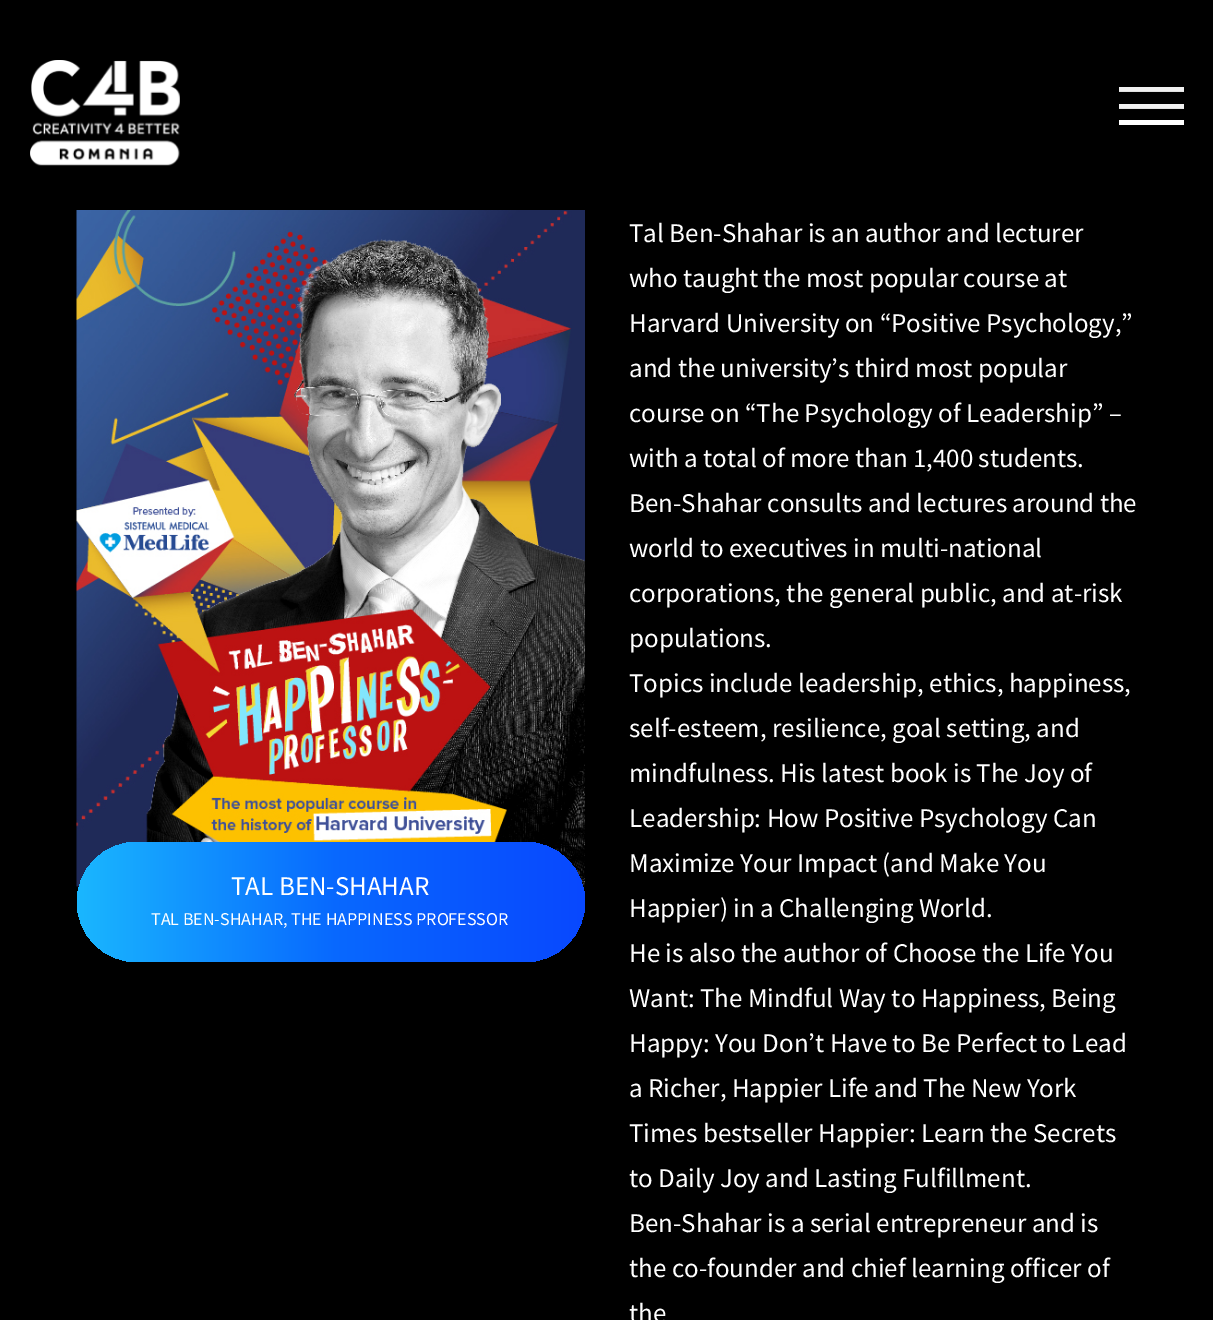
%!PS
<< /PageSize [1213 1320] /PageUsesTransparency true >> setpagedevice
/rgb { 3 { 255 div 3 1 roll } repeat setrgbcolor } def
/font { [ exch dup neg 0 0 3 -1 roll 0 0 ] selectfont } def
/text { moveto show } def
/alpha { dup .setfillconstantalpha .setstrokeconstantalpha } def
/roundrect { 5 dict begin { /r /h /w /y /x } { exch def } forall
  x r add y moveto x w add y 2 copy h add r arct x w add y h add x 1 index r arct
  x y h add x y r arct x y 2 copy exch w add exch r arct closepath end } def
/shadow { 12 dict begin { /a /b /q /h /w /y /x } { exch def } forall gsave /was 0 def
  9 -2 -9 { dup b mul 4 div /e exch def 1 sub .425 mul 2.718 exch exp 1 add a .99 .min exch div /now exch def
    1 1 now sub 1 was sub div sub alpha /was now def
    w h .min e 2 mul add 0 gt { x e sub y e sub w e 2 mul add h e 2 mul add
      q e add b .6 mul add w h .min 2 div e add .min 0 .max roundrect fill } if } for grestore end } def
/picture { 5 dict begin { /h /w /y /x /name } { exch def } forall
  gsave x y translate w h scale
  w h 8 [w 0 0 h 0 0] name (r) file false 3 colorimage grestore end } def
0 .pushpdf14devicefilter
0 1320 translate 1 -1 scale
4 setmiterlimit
0 0 0 rgb
0 0 1213 1320 rectfill
(img_01.rgb) 30 60 150 106 picture
255 255 255 rgb
1119 87 65 5 rectfill
0 0 0 rgb
1118 108 64 5 0 13.5 0.75 shadow
255 255 255 rgb
1119 104 65 5 rectfill
0 0 0 rgb
1118 125 64 5 0 13.5 0.75 shadow
255 255 255 rgb
1119 120 65 5 rectfill
(img_02.rgb) 76 210 509 677 picture
gsave 77 842 508 120 60 roundrect clip newpath
<< /ShadingType 2 /ColorSpace /DeviceRGB /Coords [77 902 585 902] /Extend [true true] /Function << /FunctionType 3 /Domain [0 1] /Functions [<< /FunctionType 2 /Domain [0 1] /C0 [0.102 0.718 0.996] /C1 [0.031 0.408 0.996] /N 1 >> << /FunctionType 2 /Domain [0 1] /C0 [0.031 0.408 0.996] /C1 [0.031 0.282 0.996] /N 1 >>] /Bounds [0.51] /Encode [0 1 0 1] >> >> shfill grestore
/SourceSansPro-Regular 27 font
(TAL BEN-SHAHAR) 231 895 text
/SourceSansPro-Regular 18 font
(TAL BEN-SHAHAR, THE HAPPINESS PROFESSOR) 151 925 text
/SourceSansPro-Regular 27 font
(Tal Ben-Shahar is an author and lecturer) 629 242 text
(who taught the most popular course at) 629 287 text
(Harvard University on “Positive Psychology,”) 629 332 text
(and the university’s third most popular) 629 377 text
(course on “The Psychology of Leadership” –) 629 422 text
(with a total of more than 1,400 students.) 629 467 text
(Ben-Shahar consults and lectures around the) 629 512 text
(world to executives in multi-national) 629 557 text
(corporations, the general public, and at-risk) 629 602 text
(populations.) 629 647 text
(Topics include leadership, ethics, happiness,) 629 692 text
(self-esteem, resilience, goal setting, and) 629 737 text
(mindfulness. His latest book is The Joy of) 629 782 text
(Leadership: How Positive Psychology Can) 629 827 text
(Maximize Your Impact \(and Make You) 629 872 text
(Happier\) in a Challenging World.) 629 917 text
(He is also the author of Choose the Life You) 629 962 text
(Want: The Mindful Way to Happiness, Being) 629 1007 text
(Happy: You Don’t Have to Be Perfect to Lead) 629 1052 text
(a Richer, Happier Life and The New York) 629 1097 text
(Times bestseller Happier: Learn the Secrets) 629 1142 text
(to Daily Joy and Lasting Fulfillment.) 629 1187 text
(Ben-Shahar is a serial entrepreneur and is) 629 1232 text
(the co-founder and chief learning officer of) 629 1277 text
(the) 629 1322 text
.poppdf14devicefilter showpage
